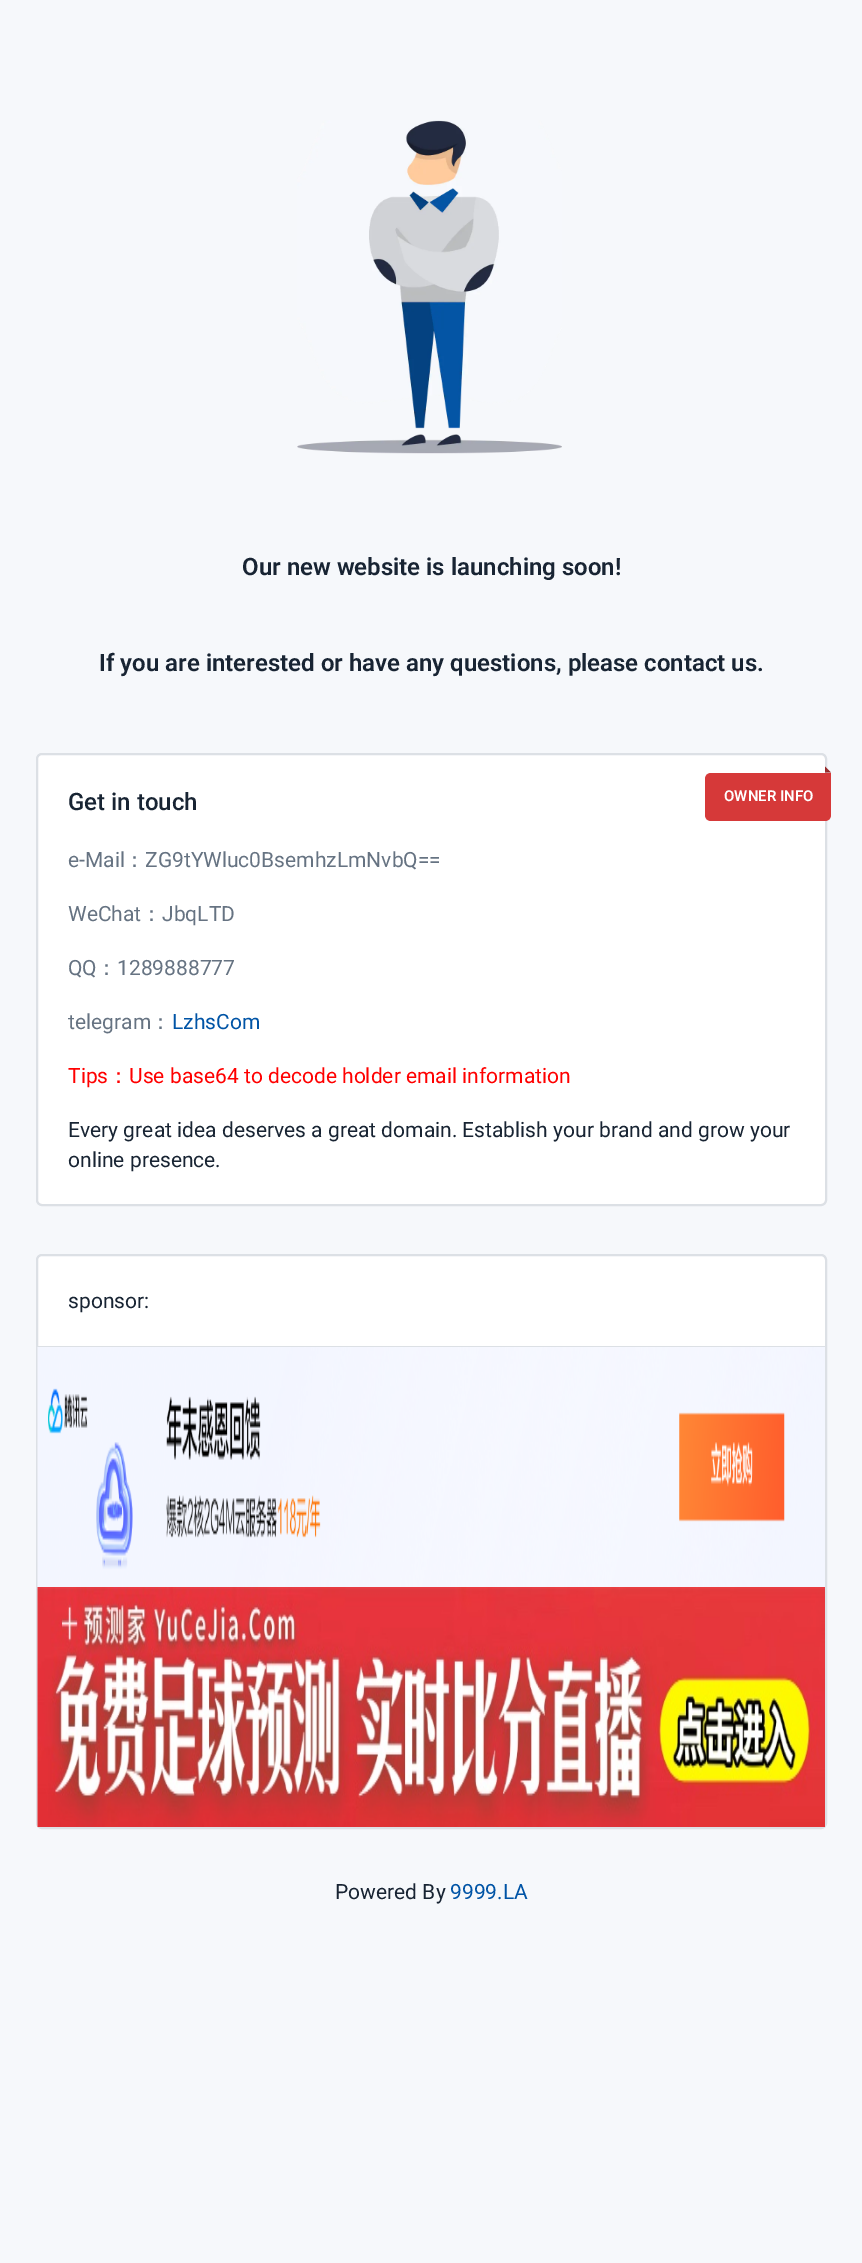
%!PS
<< /PageSize [862 2263] >> setpagedevice
/rgb { 3 { 255 div 3 1 roll } repeat setrgbcolor } def
/font { [ exch dup neg 0 0 3 -1 roll 0 0 ] selectfont } def
/text { moveto show } def
/roundrect { 5 dict begin { /r /h /w /y /x } { exch def } forall
  x r add y moveto x w add y 2 copy h add r arct x w add y h add x 1 index r arct
  x y h add x y r arct x y 2 copy exch w add exch r arct closepath end } def
/picture { 5 dict begin { /h /w /y /x /name } { exch def } forall
  gsave x y translate w h scale
  w h 8 [w 0 0 h 0 0] name (r) file false 3 colorimage grestore end } def
0 2263 translate 1 -1 scale
4 setmiterlimit
246 248 251 rgb
0 0 862 2263 rectfill
(img_01.rgb) 297 120 265 334 picture
255 255 255 rgb
37 754 789 451 5 roundrect gsave fill grestore
220 224 229 rgb
2 setlinewidth
stroke
214 57 57 rgb
711 773 moveto 120 0 rlineto 0 42 rlineto 0 3.5 -2.5 6 -6 6 rcurveto -114 0 rlineto -3.5 0 -6 -2.5 -6 -6 rcurveto 0 -36 rlineto 0 -3.5 2.5 -6 6 -6 rcurveto closepath fill
150 40 40 rgb
831 772.5 moveto -6 0 rlineto 3 -3 rlineto closepath fill
825 772.5 moveto 0 -6 rlineto 3 3 rlineto closepath fill
255 255 255 rgb
37 1255 789 573 5 roundrect gsave fill grestore
220 224 229 rgb
stroke
38 1346 787 1 rectfill
(img_02.rgb) 37 1347 788 240 picture
(img_03.rgb) 37 1587 788 240 picture
/Roboto-SemiBold 24 font
24 36 51 rgb
(Our new website is launching soon!) 242 575 text
(If you are interested or have any questions, please contact us.) 99 671 text
/Roboto-SemiBold 15 font
255 255 255 rgb
(OWNER INFO) 724 801 text
/Roboto-Medium 24 font
24 36 51 rgb
(Get in touch) 68 810 text
/Roboto-Regular 21 font
102 115 130 rgb
(e-Mail) 68 867 text
/WenQuanYiZenHei-Medium 21 font
(：) 124 867 text
/Roboto-Regular 21 font
(ZG9tYWluc0BsemhzLmNvbQ==) 145 867 text
(WeChat) 68 921 text
/WenQuanYiZenHei-Medium 21 font
(：) 141 921 text
/Roboto-Regular 21 font
(JbqLTD) 162 921 text
(QQ) 68 975 text
/WenQuanYiZenHei-Medium 21 font
(：) 96 975 text
/Roboto-Regular 21 font
(1289888777) 117 975 text
(telegram) 68 1029 text
/WenQuanYiZenHei-Medium 21 font
(：) 150 1029 text
/Roboto-Regular 21 font
0 84 166 rgb
(LzhsCom) 172 1029 text
255 0 0 rgb
(Tips) 68 1083 text
/WenQuanYiZenHei-Medium 21 font
(：) 108 1083 text
/Roboto-Regular 21 font
(Use base64 to decode holder email information) 129 1083 text
24 36 51 rgb
(Every great idea deserves a great domain. Establish your brand and grow your) 68 1137 text
(online presence.) 68 1167 text
(sponsor:) 68 1308 text
(Powered By) 335 1899 text
0 84 166 rgb
(9999.LA) 450 1899 text
showpage
